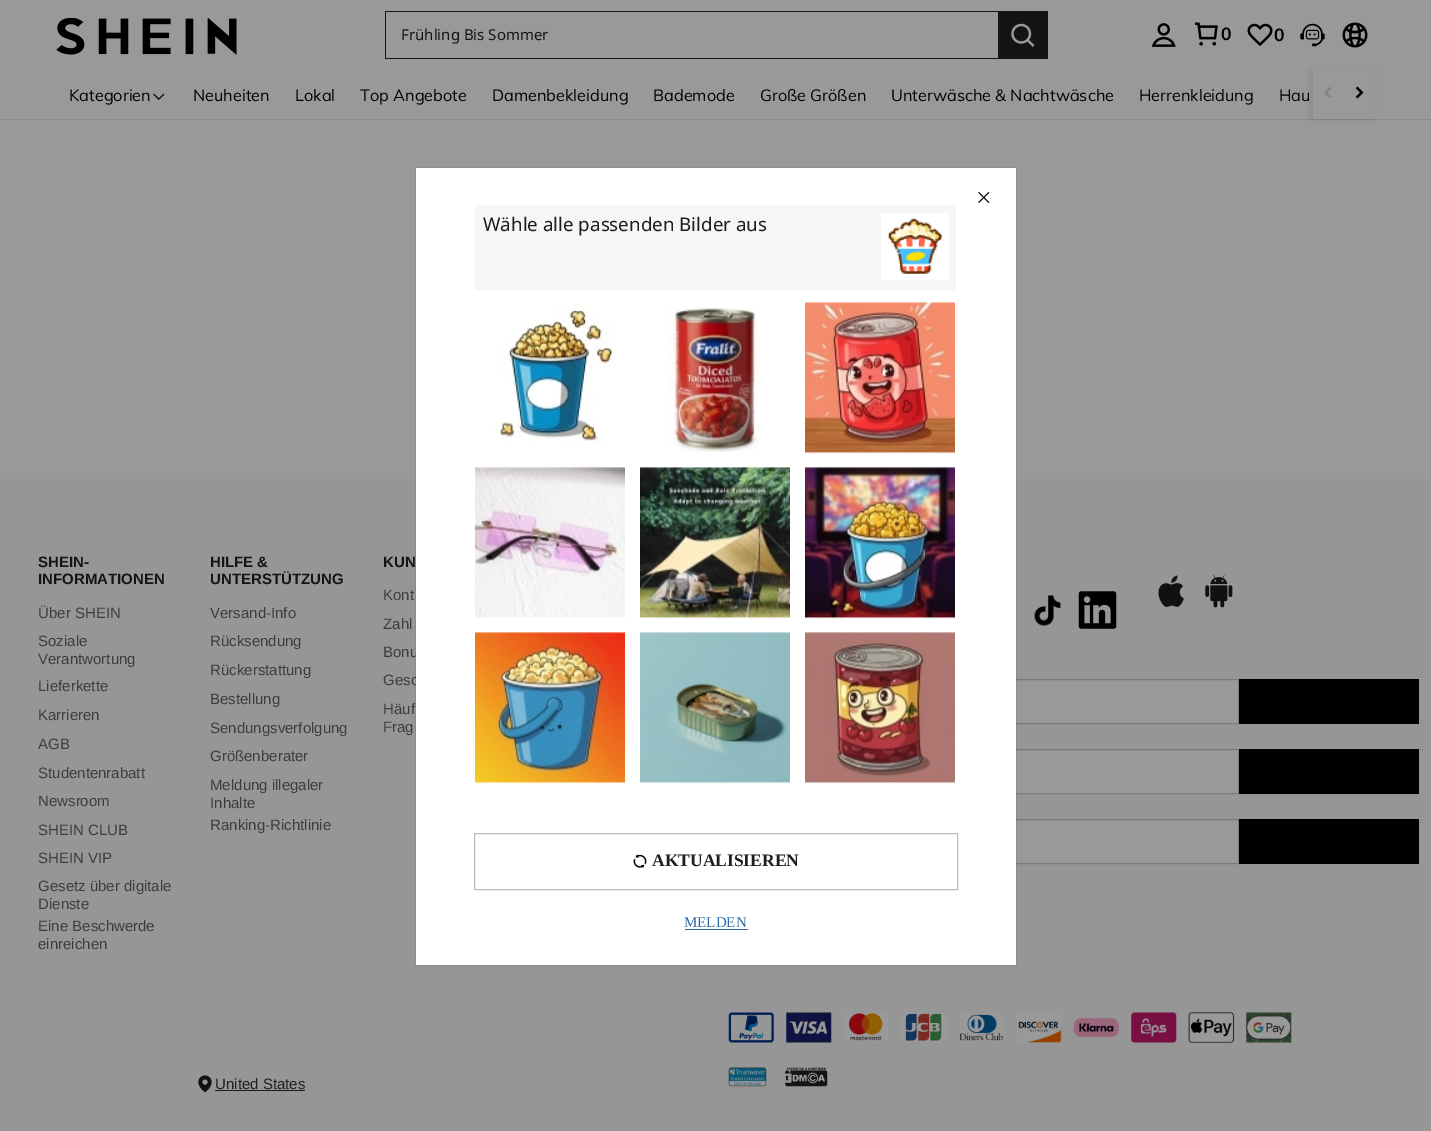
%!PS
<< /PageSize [1431 1131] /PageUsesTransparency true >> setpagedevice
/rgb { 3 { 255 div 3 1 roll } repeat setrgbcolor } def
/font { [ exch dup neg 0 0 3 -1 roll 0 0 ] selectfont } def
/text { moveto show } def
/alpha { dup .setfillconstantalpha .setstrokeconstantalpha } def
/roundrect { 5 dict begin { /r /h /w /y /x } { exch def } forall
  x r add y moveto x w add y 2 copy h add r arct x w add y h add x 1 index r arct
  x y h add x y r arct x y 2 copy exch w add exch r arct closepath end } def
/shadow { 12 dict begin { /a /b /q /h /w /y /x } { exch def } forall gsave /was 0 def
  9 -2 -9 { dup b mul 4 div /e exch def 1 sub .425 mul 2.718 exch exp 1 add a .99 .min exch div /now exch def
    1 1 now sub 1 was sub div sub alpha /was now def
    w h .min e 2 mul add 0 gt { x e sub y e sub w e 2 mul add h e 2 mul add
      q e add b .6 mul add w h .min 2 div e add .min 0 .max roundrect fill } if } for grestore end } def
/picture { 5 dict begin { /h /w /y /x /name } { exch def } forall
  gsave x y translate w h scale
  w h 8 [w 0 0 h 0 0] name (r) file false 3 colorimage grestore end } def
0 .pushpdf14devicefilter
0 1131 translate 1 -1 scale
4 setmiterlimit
153 153 153 rgb
0 0 1431 1131 rectfill
137 137 137 rgb
0 119 1431 1 rectfill
0 0 0 rgb
1310 70 63 49 0 2 0.08 shadow
153 153 153 rgb
1310 68 63 2 rectfill
(img_01.rgb) 56 18 181 37 picture
20 20 20 rgb
385 11 613 1 rectfill
385 58 613 1 rectfill
385 11 1 48 rectfill
998 11 50 48 rectfill
(img_02.rgb) 1011 23 24 24 picture
(img_03.rgb) 1151 23 25 24 picture
(img_04.rgb) 1195 22 23 24 picture
(img_05.rgb) 1247 23 26 23 picture
(img_06.rgb) 1300 23 25 24 picture
(img_07.rgb) 1342 22 26 26 picture
(img_08.rgb) 153 93 12 7 picture
153 153 153 rgb
1313 70 62 49 rectfill
(img_09.rgb) 1324 86 8 13 picture
(img_10.rgb) 1355 86 9 13 picture
150 150 150 rgb
0 479 1431 652 rectfill
(img_11.rgb) 1034 595 27 31 picture
(img_12.rgb) 1078 591 39 38 picture
(img_13.rgb) 1158 575 26 32 picture
(img_14.rgb) 1205 575 28 33 picture
153 153 153 rgb
1016 680 222 43 rectfill
122 122 122 rgb
729.5 679.5 509 44 rectstroke
0 0 0 rgb
1239 679 180 45 rectfill
153 153 153 rgb
1016 750 222 43 rectfill
122 122 122 rgb
829.5 749.5 409 44 rectstroke
0 0 0 rgb
1239 749 180 45 rectfill
153 153 153 rgb
1016 820 222 43 rectfill
122 122 122 rgb
829.5 819.5 409 44 rectstroke
0 0 0 rgb
1239 819 180 45 rectfill
(img_15.rgb) 728 1012 46 31 picture
(img_16.rgb) 786 1012 46 31 picture
(img_17.rgb) 844 1012 44 30 picture
(img_18.rgb) 902 1013 44 29 picture
(img_19.rgb) 959 1013 44 29 picture
(img_20.rgb) 1017 1013 45 30 picture
(img_21.rgb) 1073 1017 46 21 picture
(img_22.rgb) 1131 1012 46 31 picture
(img_23.rgb) 1188 1012 46 31 picture
(img_24.rgb) 1246 1012 46 31 picture
(img_25.rgb) 198 1075 14 18 picture
30 30 30 rgb
215 1090 90 1 rectfill
(img_26.rgb) 728 1067 39 20 picture
(img_27.rgb) 785 1067 43 20 picture
0 0 0 rgb
416 168 600 797 0 0.5 0.3 shadow
/NotoSans-Regular 15 font
20 20 20 rgb
(Frühling Bis Sommer) 401 40 text
/Muli-Bold 17.5 font
0 0 0 rgb
(0) 1221 40 text
(0) 1274 41 text
/Muli-Regular 16.25 font
(Kategorien) 69 101 text
(Neuheiten) 193 101 text
(Lokal) 295 101 text
(Top Angebote) 360 101 text
(Damenbekleidung) 492 101 text
(Bademode) 653 101 text
(Große Größen) 760 101 text
(Unterwäsche & Nachtwäsche) 891 101 text
(Herrenkleidung) 1139 101 text
(Hau) 1279 101 text
/LiberationSans-Bold 15 font
20 20 20 rgb
(SHEIN-) 38 567 text
(INFORMATIONEN) 38 584 text
/LiberationSans-Regular 15 font
61 61 61 rgb
(Über SHEIN) 38 618 text
(Soziale) 38 646 text
(Verantwortung) 38 664 text
(Lieferkette) 38 691 text
(Karrieren) 38 720 text
(AGB) 38 749 text
(Studentenrabatt) 38 778 text
(Newsroom) 38 806 text
(SHEIN CLUB) 38 835 text
(SHEIN VIP) 38 863 text
(Gesetz über digitale) 38 891 text
(Dienste) 38 909 text
(Eine Beschwerde) 38 931 text
(einreichen) 38 949 text
/LiberationSans-Bold 15 font
20 20 20 rgb
(HILFE &) 210 567 text
(UNTERSTÜTZUNG) 210 584 text
/LiberationSans-Regular 15 font
61 61 61 rgb
(Versand-Info) 210 618 text
(Rücksendung) 210 646 text
(Rückerstattung) 210 675 text
(Bestellung) 210 704 text
(Sendungsverfolgung) 210 733 text
(Größenberater) 210 761 text
(Meldung illegaler) 210 790 text
(Inhalte) 210 808 text
(Ranking-Richtlinie) 210 830 text
/LiberationSans-Bold 15 font
20 20 20 rgb
(KUN) 383 567 text
/LiberationSans-Regular 15 font
61 61 61 rgb
(Kont) 383 600 text
(Zahl) 383 629 text
(Bonu) 383 657 text
(Gesc) 383 685 text
(Häuf) 383 714 text
(Frag) 383 732 text
30 30 30 rgb
(United States) 215 1089 text
255 255 255 rgb
416 168 600 797 rectfill
(img_28.rgb) 978 192 12 11 picture
246 246 246 rgb
475 205 481 85 rectfill
/NotoSans-Regular 18.75 font
30 30 30 rgb
(Wähle alle passenden Bilder aus) 483 231 text
255 255 255 rgb
881 213 68 67 rectfill
(img_29.rgb) 888 218 55 56 picture
(img_30.rgb) 495 303 120 139 picture
(img_31.rgb) 668 307 92 145 picture
(img_32.rgb) 805 302 150 152 picture
(img_33.rgb) 475 467 150 151 picture
(img_34.rgb) 640 467 150 152 picture
(img_35.rgb) 805 467 150 152 picture
(img_36.rgb) 475 632 150 152 picture
(img_37.rgb) 640 632 150 152 picture
(img_38.rgb) 805 632 150 152 picture
187 187 187 rgb
474.5 833.5 483 56 rectstroke
(img_39.rgb) 633 854 14 14 picture
/LiberationSerif-Bold 17.5 font
30 30 30 rgb
(AKTUALISIEREN) 652 866 text
/LiberationSerif-Regular 15 font
45 104 168 rgb
(MELDEN) 684 927 text
685 929 63 1 rectfill
.poppdf14devicefilter showpage
